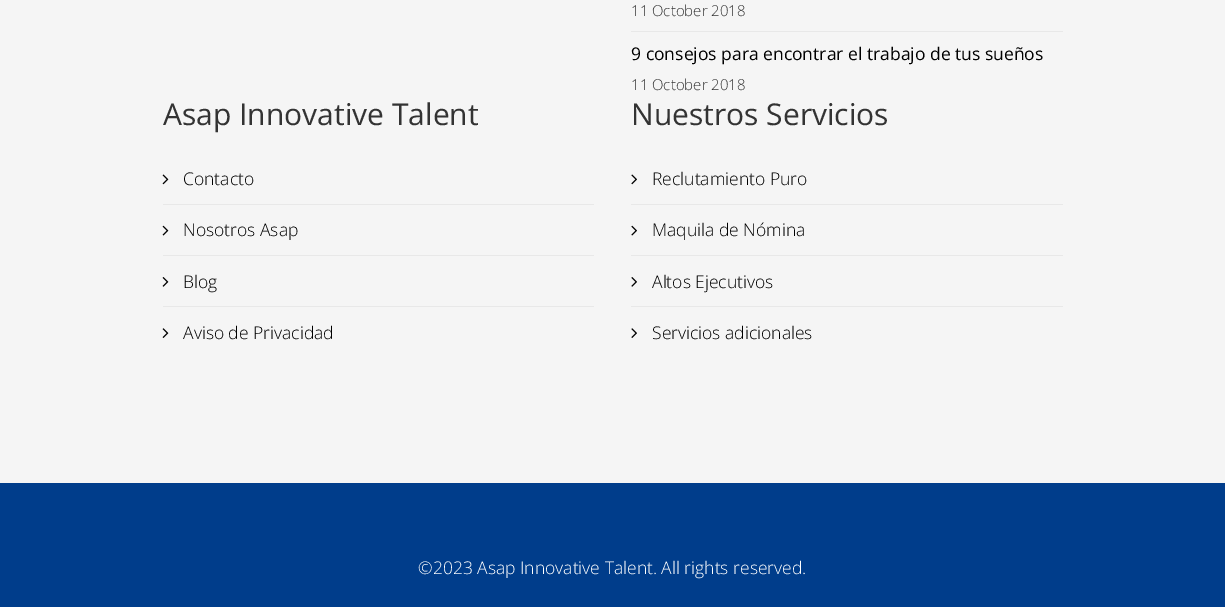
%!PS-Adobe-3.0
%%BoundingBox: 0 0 1225 607
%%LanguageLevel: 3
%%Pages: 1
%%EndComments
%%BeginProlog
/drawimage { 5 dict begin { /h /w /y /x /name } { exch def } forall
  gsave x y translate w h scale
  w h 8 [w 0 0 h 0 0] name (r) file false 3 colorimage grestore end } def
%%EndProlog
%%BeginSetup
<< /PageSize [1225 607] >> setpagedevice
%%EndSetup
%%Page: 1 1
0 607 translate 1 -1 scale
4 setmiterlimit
0.961 setgray
0 0 1225 607 rectfill
0.91 setgray
631 31 432 1 rectfill
163 204 431 1 rectfill
(images/1.raw) 162 174 7 11 drawimage
163 255 431 1 rectfill
(images/2.raw) 162 225 7 11 drawimage
163 306 431 1 rectfill
(images/3.raw) 162 277 7 10 drawimage
(images/4.raw) 162 328 7 10 drawimage
631 204 432 1 rectfill
(images/5.raw) 631 174 6 11 drawimage
631 255 432 1 rectfill
(images/6.raw) 631 225 6 11 drawimage
631 306 432 1 rectfill
(images/7.raw) 631 277 6 10 drawimage
(images/8.raw) 631 328 6 10 drawimage
0 0.239 0.545 setrgbcolor
0 483 1225 124 rectfill
/OpenSans-Light [15 0 0 -15 0 0] selectfont
0.2 setgray
631 16 moveto (11 October 2018) show
/OpenSans-Regular [17.5 0 0 -17.5 0 0] selectfont
0 setgray
631 60 moveto (9 consejos para encontrar el trabajo de tus sueños) show
/OpenSans-Light [15 0 0 -15 0 0] selectfont
0.2 setgray
631 90 moveto (11 October 2018) show
/OpenSans-Regular [30 0 0 -30 0 0] selectfont
163 125 moveto (Asap Innovative Talent) show
/OpenSans-Light [17.5 0 0 -17.5 0 0] selectfont
0 setgray
183 185 moveto (Contacto) show
183 236 moveto (Nosotros Asap) show
183 288 moveto (Blog) show
183 339 moveto (Aviso de Privacidad) show
/OpenSans-Regular [30 0 0 -30 0 0] selectfont
0.2 setgray
631 125 moveto (Nuestros Servicios) show
/OpenSans-Light [17.5 0 0 -17.5 0 0] selectfont
0 setgray
652 185 moveto (Reclutamiento Puro) show
652 236 moveto (Maquila de Nómina) show
652 288 moveto (Altos Ejecutivos) show
652 339 moveto (Servicios adicionales) show
1 setgray
418 574 moveto (©2023 Asap Innovative Talent. All rights reserved.) show
showpage
%%EOF
